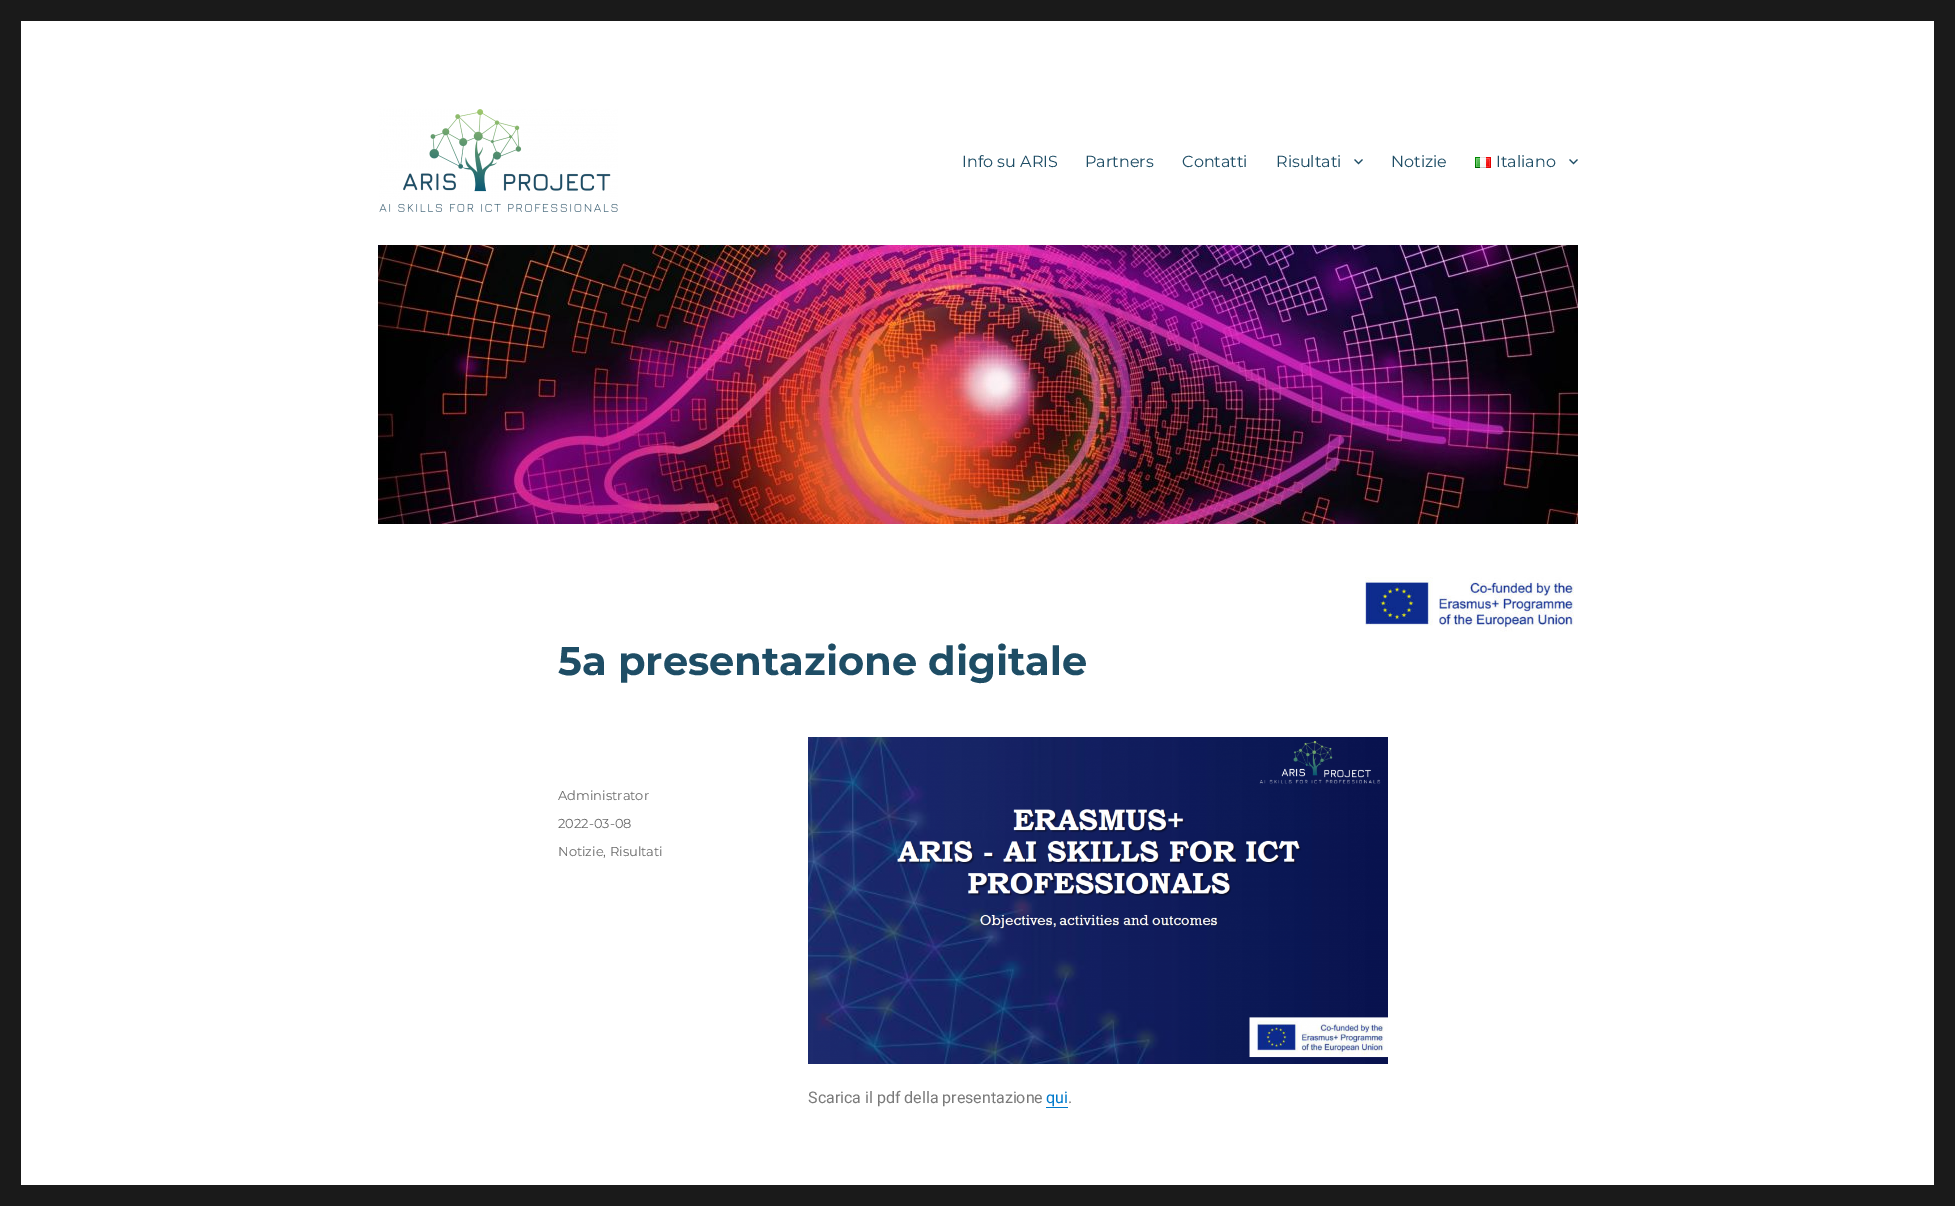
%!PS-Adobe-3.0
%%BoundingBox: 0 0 1955 1206
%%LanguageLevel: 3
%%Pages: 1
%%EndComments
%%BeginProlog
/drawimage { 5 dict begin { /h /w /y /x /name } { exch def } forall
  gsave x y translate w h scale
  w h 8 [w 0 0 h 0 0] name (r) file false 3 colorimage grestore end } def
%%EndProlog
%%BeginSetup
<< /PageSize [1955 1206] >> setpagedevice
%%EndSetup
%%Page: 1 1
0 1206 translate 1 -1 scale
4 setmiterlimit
0.102 setgray
0 0 1955 1206 rectfill
1 setgray
21 21 1913 1164 rectfill
(images/1.raw) 1365 577 209 55 drawimage
(images/2.raw) 379 109 239 103 drawimage
(images/3.raw) 1354 159 9 6 drawimage
(images/4.raw) 1475 157 16 11 drawimage
(images/3.raw) 1569 159 9 6 drawimage
(images/5.raw) 378 245 1200 279 drawimage
(images/6.raw) 808 737 580 327 drawimage
0 0.478 0.8 setrgbcolor
1046 1107 22 1 rectfill
/Montserrat-Thin [16 0 0 -16 0 0] selectfont
0.118 0.302 0.396 setrgbcolor
962 167 moveto (Info su ARIS) show
1085 167 moveto (Partners) show
1182 167 moveto (Contatti) show
1276 167 moveto (Risultati) show
1391 167 moveto (Notizie) show
1496 167 moveto (Italiano) show
/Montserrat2-Thin [40 0 0 -40 0 0] selectfont
558 675 moveto (5a presentazione digitale) show
/Montserrat-Thin [13 0 0 -13 0 0] selectfont
0.408 setgray
558 800 moveto (Administrator) show
558 828 moveto (2022-03-08) show
558 856 moveto (Notizie, Risultati) show
/Roboto-Regular [16 0 0 -16 0 0] selectfont
0.478 setgray
808 1103 moveto (Scarica il pdf della presentazione) show
0 0.478 0.8 setrgbcolor
1046 1103 moveto (qui) show
0.478 setgray
1068 1103 moveto (.) show
showpage
%%EOF
